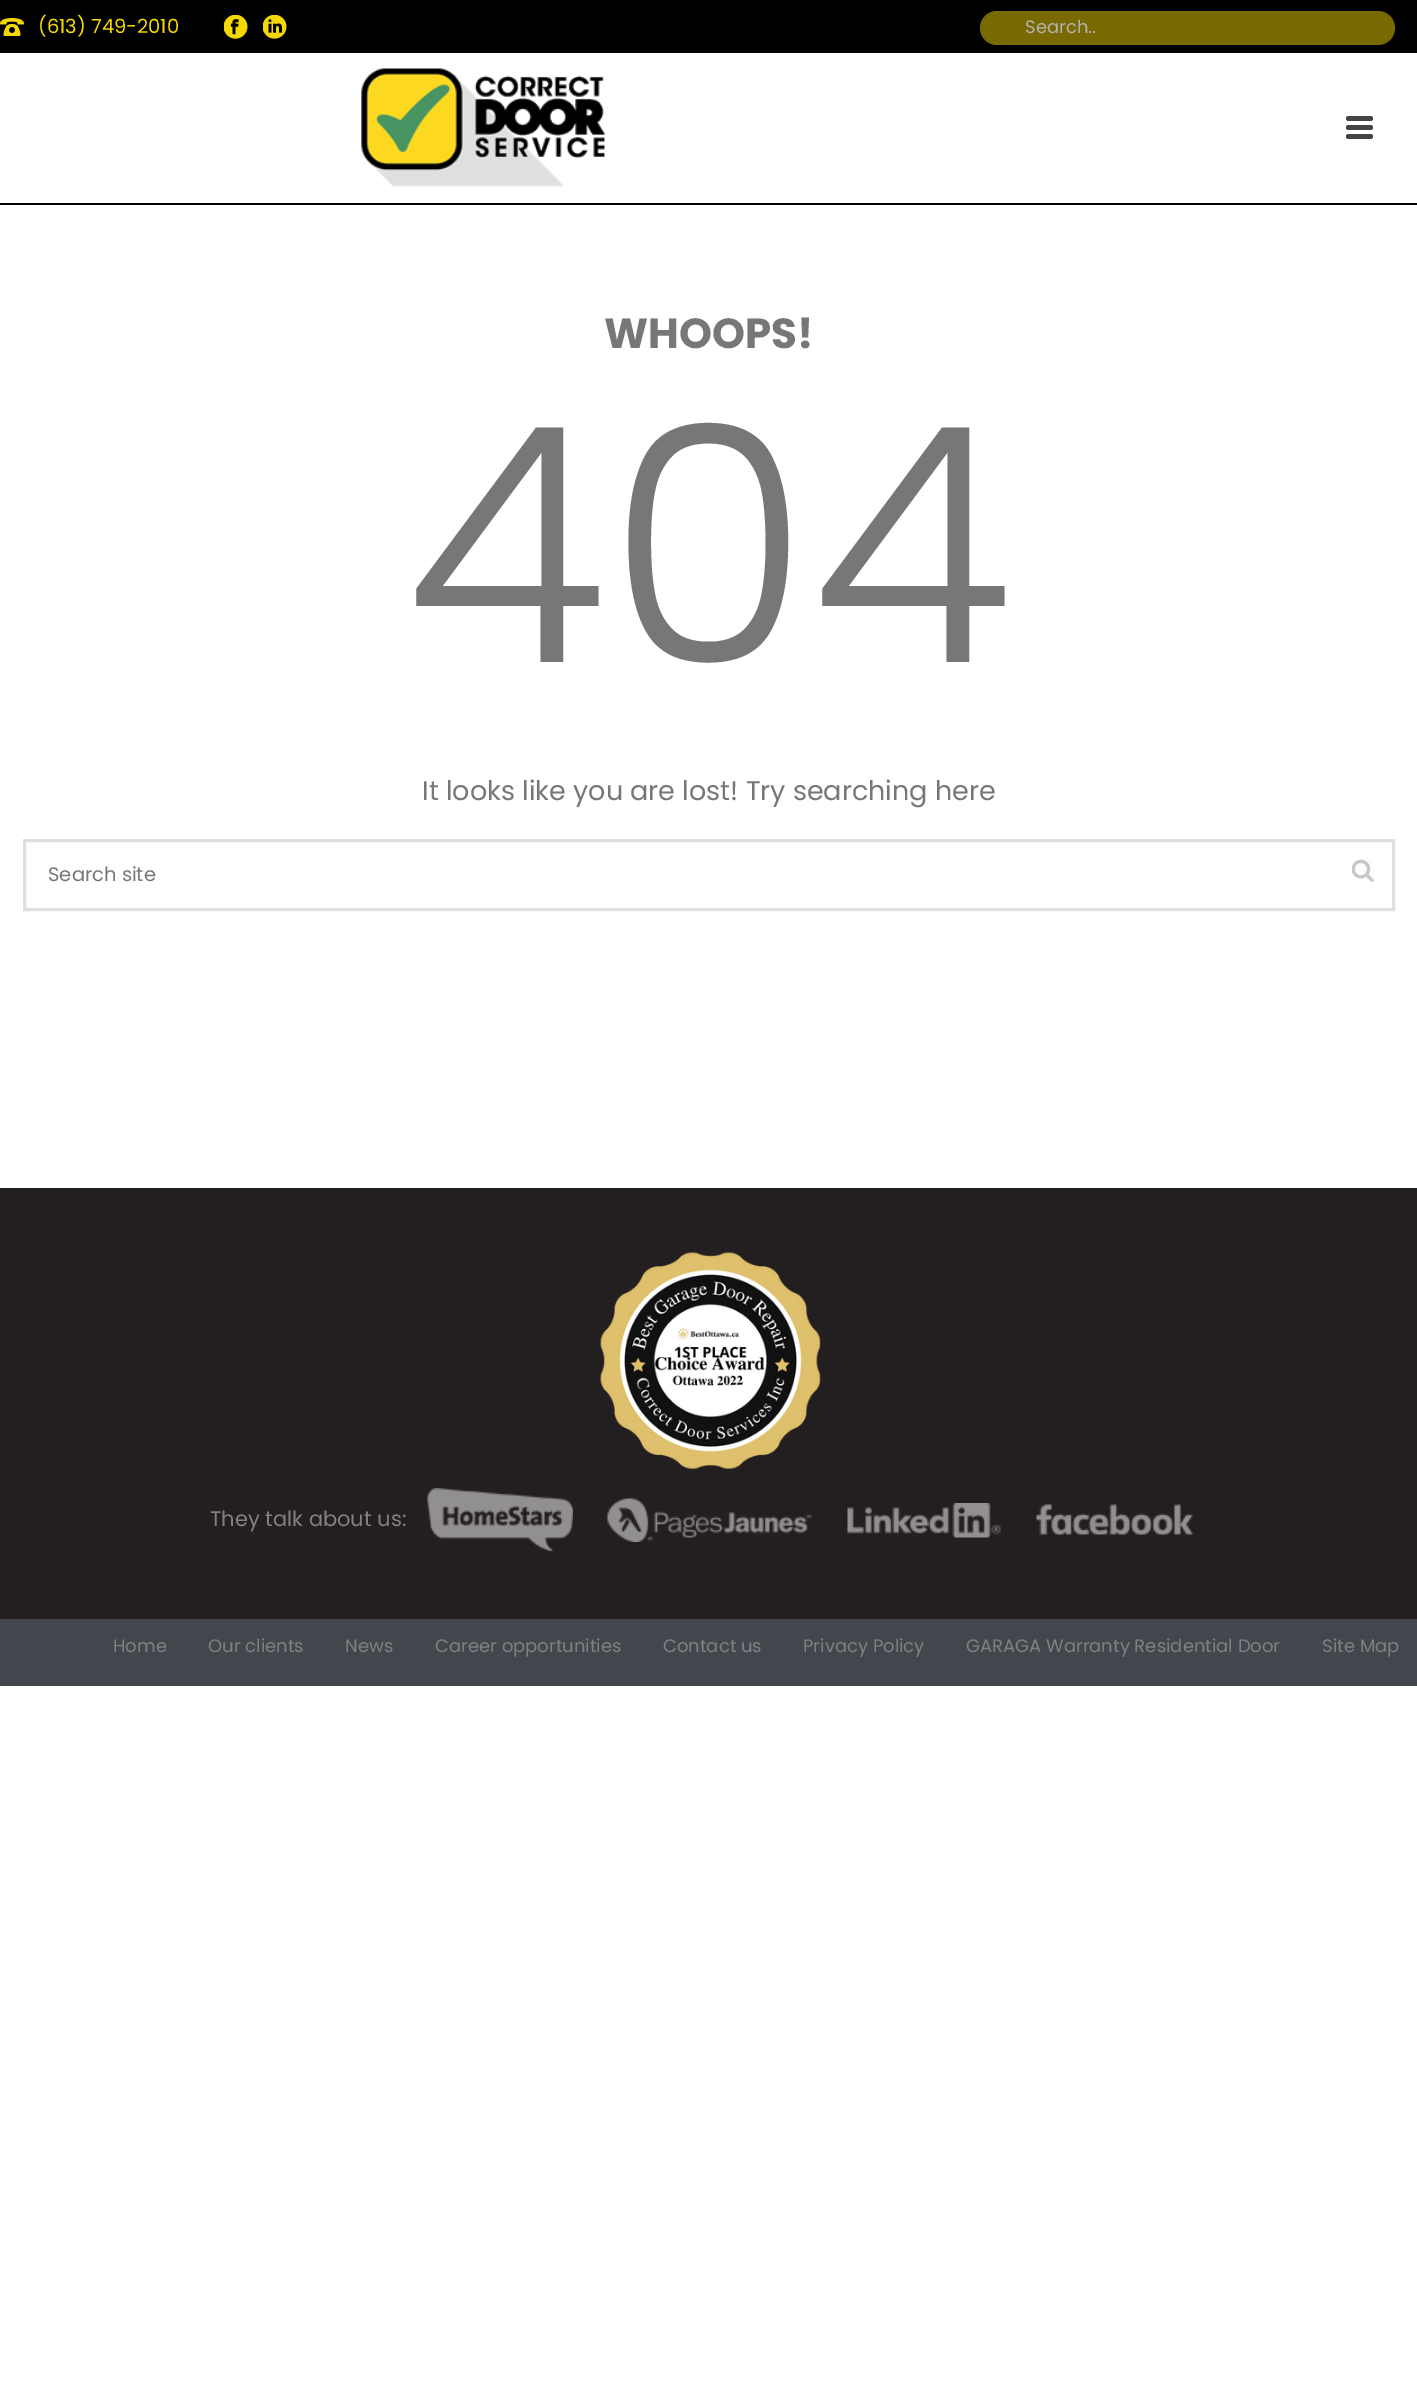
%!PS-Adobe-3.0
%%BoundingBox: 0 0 1417 2402
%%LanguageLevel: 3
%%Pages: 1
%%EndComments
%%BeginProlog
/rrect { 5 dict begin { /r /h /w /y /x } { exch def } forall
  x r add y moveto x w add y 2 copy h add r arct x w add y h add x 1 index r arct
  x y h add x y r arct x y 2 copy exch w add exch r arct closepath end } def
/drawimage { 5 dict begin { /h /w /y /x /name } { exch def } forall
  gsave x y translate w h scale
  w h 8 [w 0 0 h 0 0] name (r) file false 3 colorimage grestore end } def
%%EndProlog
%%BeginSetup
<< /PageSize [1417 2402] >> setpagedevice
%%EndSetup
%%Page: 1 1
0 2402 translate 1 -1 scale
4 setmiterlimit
1 setgray
0 0 1417 2402 rectfill
0 setgray
0 0 1417 53 rectfill
(images/1.raw) 0 18 24 18 drawimage
(images/2.raw) 224 15 24 24 drawimage
(images/3.raw) 263 15 24 24 drawimage
gsave
980 0 415 53 26.5 rrect clip newpath
0.471 0.416 0.004 setrgbcolor
980 11 415 34 17 rrect fill
grestore
0 203 1417 2 rectfill
(images/4.raw) 361 68 244 119 drawimage
0.267 setgray
1346 116 27 5 2.5 rrect fill
1346 125 27 5 2.5 rrect fill
1346 134 27 5 2.5 rrect fill
0.875 setgray
3 setlinewidth
24.5 840.5 1369 69 rectstroke
(images/5.raw) 1352 859 22 23 drawimage
0.137 0.122 0.125 setrgbcolor
0 1188 1417 431 rectfill
(images/6.raw) 600 1252 221 218 drawimage
(images/7.raw) 427 1488 146 63 drawimage
(images/8.raw) 607 1498 205 44 drawimage
(images/9.raw) 847 1503 154 35 drawimage
(images/10.raw) 1036 1504 157 31 drawimage
0.263 0.278 0.302 setrgbcolor
0 1619 1417 67 rectfill
/Poppins-Regular [19.5 0 0 -19.5 0 0] selectfont
0.957 0.847 0.008 setrgbcolor
38 33 moveto (\(613\) 749-2010) show
/Poppins-Regular [18 0 0 -18 0 0] selectfont
0.702 setgray
1025 33 moveto (Search..) show
/Poppins-Bold [42 0 0 -42 0 0] selectfont
0.467 setgray
604 348 moveto (WHOOPS!) show
/Poppins-Light [330 0 0 -330 0 0] selectfont
405 662 moveto (404) show
/Poppins-Regular [27 0 0 -27 0 0] selectfont
422 800 moveto (It looks like you are lost! Try searching here) show
/Poppins-Regular [19.5 0 0 -19.5 0 0] selectfont
48 881 moveto (Search site) show
/Poppins-Regular [21 0 0 -21 0 0] selectfont
0.502 setgray
210 1526 moveto (They talk about us:) show
/Poppins-Regular [18 0 0 -18 0 0] selectfont
113 1652 moveto (Home) show
208 1652 moveto (Our clients) show
345 1652 moveto (News) show
435 1652 moveto (Career opportunities) show
663 1652 moveto (Contact us) show
803 1652 moveto (Privacy Policy) show
966 1652 moveto (GARAGA Warranty Residential Door) show
1322 1652 moveto (Site Map) show
showpage
%%EOF
